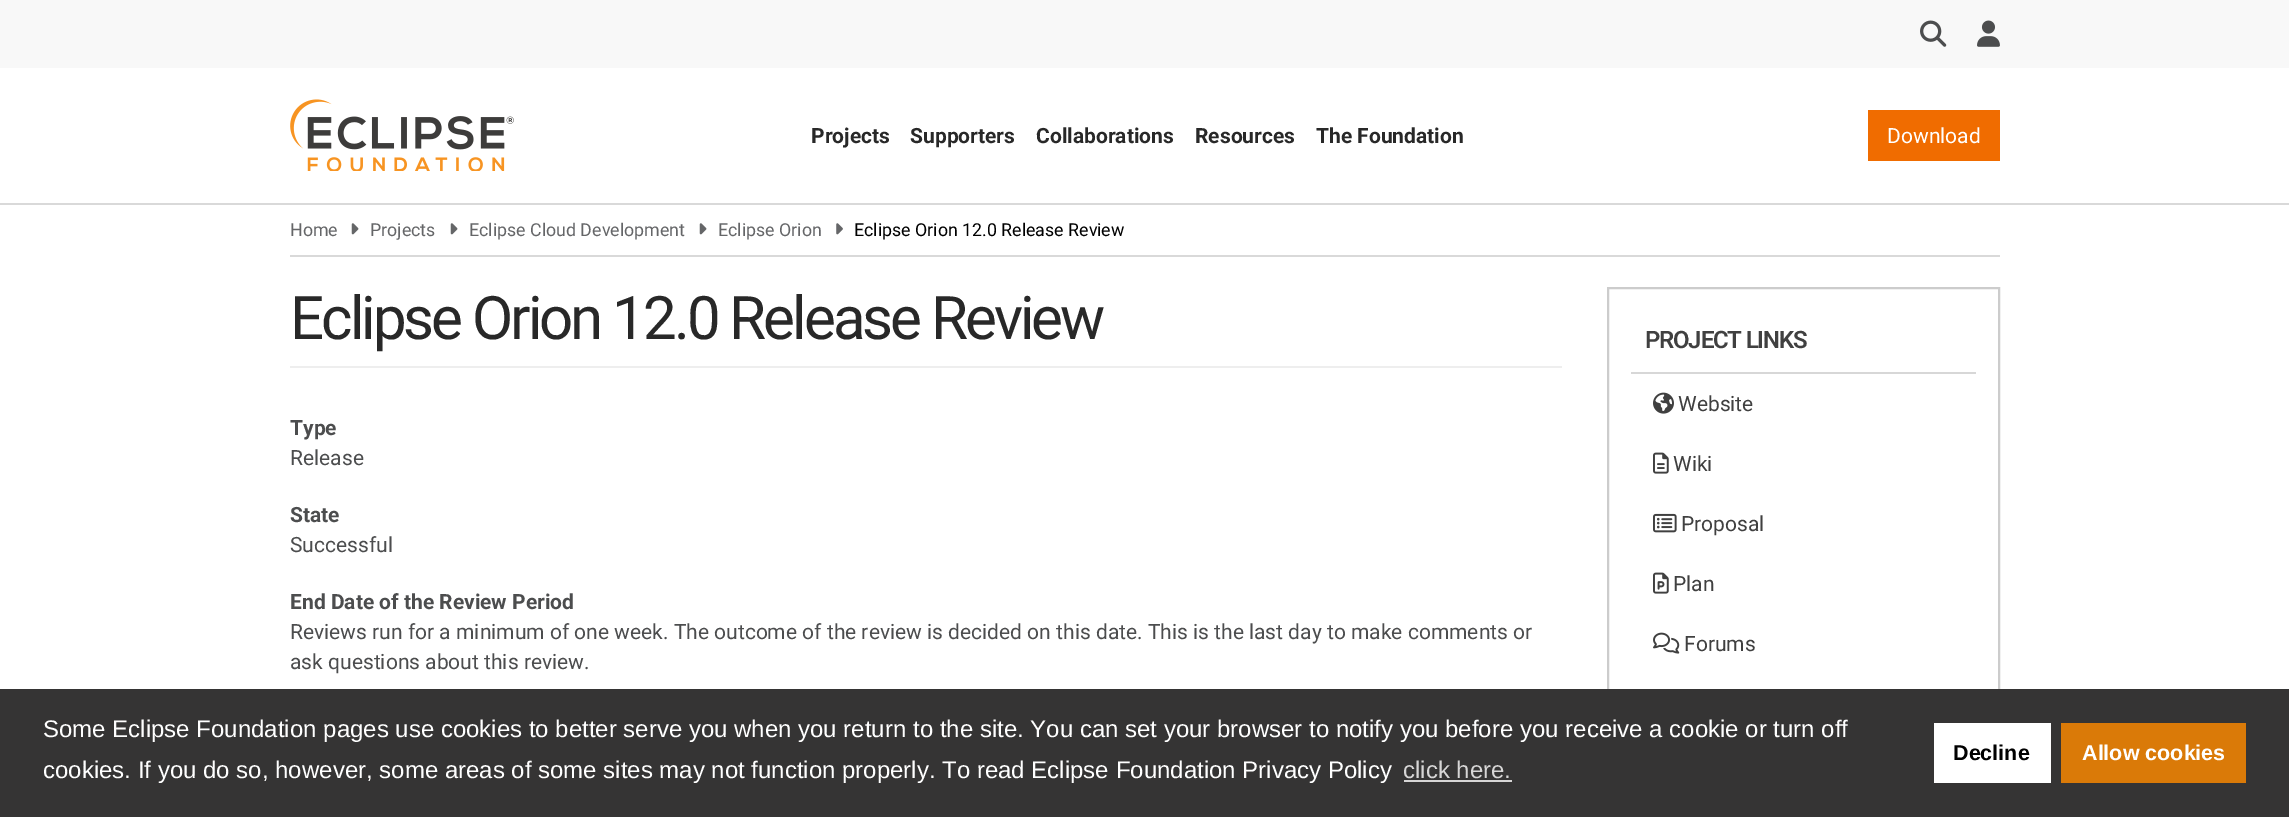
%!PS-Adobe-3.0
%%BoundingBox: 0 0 2289 817
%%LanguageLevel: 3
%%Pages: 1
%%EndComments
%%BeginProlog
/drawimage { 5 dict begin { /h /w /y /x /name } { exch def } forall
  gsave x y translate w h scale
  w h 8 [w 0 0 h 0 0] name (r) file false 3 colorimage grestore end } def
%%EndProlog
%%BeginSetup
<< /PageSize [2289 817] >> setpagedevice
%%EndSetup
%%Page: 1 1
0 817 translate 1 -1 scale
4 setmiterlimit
1 setgray
0 0 2289 817 rectfill
0.973 setgray
0 0 2289 68 rectfill
(images/1.raw) 1920 20 27 27 drawimage
(images/2.raw) 1977 20 23 27 drawimage
0.851 setgray
0 203 2289 2 rectfill
(images/3.raw) 290 99 224 72 drawimage
0.941 0.424 0 setrgbcolor
1868 110 132 51 rectfill
0.851 setgray
290 255 1710 2 rectfill
(images/4.raw) 351 223 8 12 drawimage
(images/4.raw) 450 223 8 12 drawimage
(images/4.raw) 699 223 8 12 drawimage
(images/5.raw) 836 223 7 12 drawimage
0.933 setgray
290 366 1272 2 rectfill
0.8 setgray
2 setlinewidth
1608 288 391 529 rectstroke
0.843 setgray
1631 372 345 2 rectfill
(images/6.raw) 1653 392 21 22 drawimage
(images/7.raw) 1653 452 16 22 drawimage
(images/8.raw) 1653 513 24 20 drawimage
(images/9.raw) 1653 572 16 22 drawimage
(images/10.raw) 1653 632 27 22 drawimage
0.208 0.204 0.204 setrgbcolor
0 689 2289 128 rectfill
0.843 0.839 0.839 setrgbcolor
1404 780 108 2 rectfill
1 setgray
1934 723 117 60 rectfill
0.855 0.478 0.031 setrgbcolor
2061 723 185 60 rectfill
/Roboto-Bold [21 0 0 -21 0 0] selectfont
0.157 setgray
811 143 moveto (Projects) show
910 143 moveto (Supporters) show
1036 143 moveto (Collaborations) show
1195 143 moveto (Resources) show
1316 143 moveto (The Foundation) show
/Roboto-Regular [21 0 0 -21 0 0] selectfont
1 setgray
1887 143 moveto (Download) show
/Roboto-Regular [17.8 0 0 -17.8 0 0] selectfont
0.396 0.4 0.408 setrgbcolor
290 236 moveto (Home) show
370 236 moveto (Projects) show
469 236 moveto (Eclipse Cloud Development) show
718 236 moveto (Eclipse Orion) show
0 setgray
854 236 moveto (Eclipse Orion 12.0 Release Review) show
/Roboto-Regular [60 0 0 -60 0 0] selectfont
0.157 setgray
290 339 moveto -3 0 (Eclipse Orion 12.0 Release Review) ashow
/Roboto-Bold [21 0 0 -21 0 0] selectfont
0.298 0.302 0.306 setrgbcolor
290 435 moveto (Type) show
/Roboto-Regular [21 0 0 -21 0 0] selectfont
290 465 moveto (Release) show
/Roboto-Bold [21 0 0 -21 0 0] selectfont
290 522 moveto (State) show
/Roboto-Regular [21 0 0 -21 0 0] selectfont
290 552 moveto (Successful) show
/Roboto-Bold [21 0 0 -21 0 0] selectfont
290 609 moveto (End Date of the Review Period) show
/Roboto-Regular [21 0 0 -21 0 0] selectfont
290 639 moveto (Reviews run for a minimum of one week. The outcome of the review is decided on this date. This is the last day to make comments or) show
290 669 moveto (ask questions about this review.) show
/Roboto-SemiBold [24 0 0 -24 0 0] selectfont
0.251 setgray
1645 348 moveto -1.25 0 (PROJECT LINKS) ashow
/Roboto-Regular [21 0 0 -21 0 0] selectfont
1678 411 moveto (Website) show
1673 471 moveto (Wiki) show
1681 531 moveto (Proposal) show
1673 591 moveto (Plan) show
1684 651 moveto (Forums) show
/LiberationSans-Regular [24 0 0 -24 0 0] selectfont
1 setgray
43 737 moveto (Some Eclipse Foundation pages use cookies to better serve you when you return to the site. You can set your browser to notify you before you receive a cookie or turn off) show
43 778 moveto (cookies. If you do so, however, some areas of some sites may not function properly. To read Eclipse Foundation Privacy Policy) show
0.843 0.839 0.839 setrgbcolor
1403 778 moveto (click here.) show
/LiberationSans-Bold [21.5 0 0 -21.5 0 0] selectfont
0 setgray
1953 760 moveto (Decline) show
1 setgray
2082 760 moveto (Allow cookies) show
showpage
%%EOF
